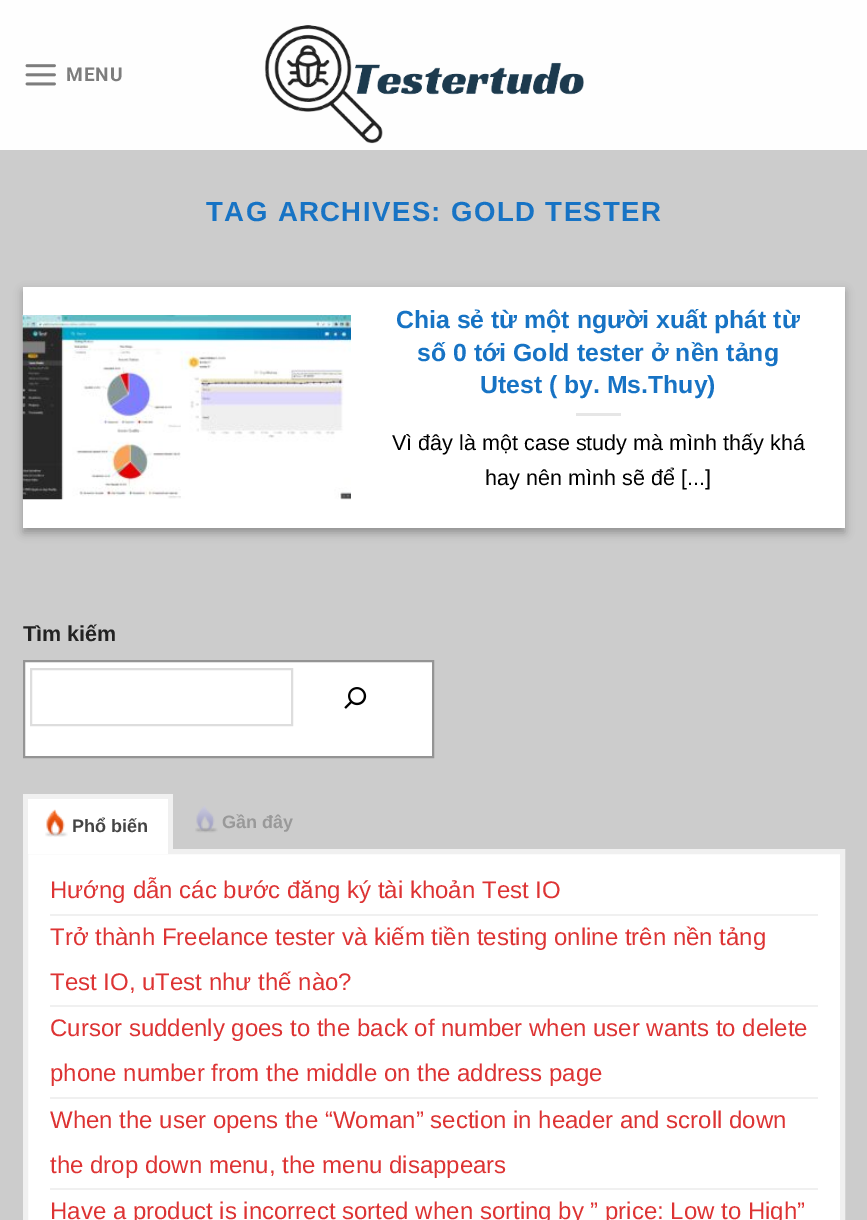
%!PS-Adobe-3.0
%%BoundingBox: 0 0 867 1220
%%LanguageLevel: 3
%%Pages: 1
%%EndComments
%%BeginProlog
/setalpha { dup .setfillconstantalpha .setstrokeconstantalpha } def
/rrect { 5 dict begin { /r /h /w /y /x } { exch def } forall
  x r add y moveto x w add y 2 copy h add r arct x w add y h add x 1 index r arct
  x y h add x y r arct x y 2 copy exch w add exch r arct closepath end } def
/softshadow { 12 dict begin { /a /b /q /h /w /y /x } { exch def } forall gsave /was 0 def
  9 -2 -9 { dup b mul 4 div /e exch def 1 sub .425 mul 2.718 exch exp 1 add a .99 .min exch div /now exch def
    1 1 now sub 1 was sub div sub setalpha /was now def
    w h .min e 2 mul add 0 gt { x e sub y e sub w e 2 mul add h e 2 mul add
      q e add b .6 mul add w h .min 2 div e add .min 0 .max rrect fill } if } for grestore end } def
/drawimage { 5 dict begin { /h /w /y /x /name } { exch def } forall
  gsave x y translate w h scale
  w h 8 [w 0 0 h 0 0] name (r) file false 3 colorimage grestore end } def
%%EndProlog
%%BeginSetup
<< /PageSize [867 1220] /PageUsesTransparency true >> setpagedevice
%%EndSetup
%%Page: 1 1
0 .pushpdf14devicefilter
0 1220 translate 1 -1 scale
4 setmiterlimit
0.8 setgray
0 0 867 1220 rectfill
0.996 setgray
0 0 867 150 rectfill
(images/1.raw) 25 64 31 22 drawimage
(images/2.raw) 264 25 320 119 drawimage
0 setgray
23 291 822 242 0 4.5 0.23 softshadow
29 297 810 230 0 4.5 0.16 softshadow
1 setgray
23 287 822 241 rectfill
(images/3.raw) 22 315 329 185 drawimage
0.902 setgray
576 413 45 3 rectfill
1 setgray
newpath 24 661 moveto 433 661 lineto 433 757 lineto 24 757 lineto closepath gsave fill grestore
0.58 setgray
2 setlinewidth
stroke
0.867 setgray
31 669 261 56 rectstroke
(images/4.raw) 344 687 23 22 drawimage
1 setgray
newpath 25.5 851.5 moveto 842.5 851.5 lineto 842.5 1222.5 lineto 25.5 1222.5 lineto closepath gsave fill grestore
0.941 setgray
5 setlinewidth
stroke
1 setgray
28 799 140 55 rectfill
(images/5.raw) 45 809 23 28 drawimage
0.941 setgray
23 794 150 5 rectfill
168 794 5 60 rectfill
23 794 5 60 rectfill
(images/6.raw) 195 805 23 28 drawimage
50 914 768 2 rectfill
50 1005 768 2 rectfill
50 1097 768 2 rectfill
50 1188 768 2 rectfill
/Roboto-Bold [19 0 0 -19 0 0] selectfont
0.49 setgray
66 81 moveto 1 0 (MENU) ashow
/LiberationSans-Bold [27.6 0 0 -27.6 0 0] selectfont
0.09 0.451 0.769 setrgbcolor
206 221 moveto 1.4 0 (TAG ARCHIVES: GOLD TESTER) ashow
/LiberationSans-Bold [24.8 0 0 -24.8 0 0] selectfont
396 328 moveto (Chia sẻ từ một người xuất phát từ) show
417 361 moveto (số 0 tới Gold tester ở nền tảng) show
480 393 moveto (Utest \( by. Ms.Thuy\)) show
/LiberationSans-Regular [21.6 0 0 -21.6 0 0] selectfont
0 setgray
392 450 moveto (Vì đây là một case study mà mình thấy khá) show
485 485 moveto (hay nên mình sẽ để [...]) show
/LiberationSans-Bold [21.6 0 0 -21.6 0 0] selectfont
0.133 setgray
23 641 moveto (Tìm kiếm) show
/LiberationSans-Bold [18 0 0 -18 0 0] selectfont
0.267 setgray
72 832 moveto (Phổ biến) show
0.6 setgray
222 828 moveto (Gần đây) show
/LiberationSans-Regular [24 0 0 -24 0 0] selectfont
0.867 0.2 0.2 setrgbcolor
50 898 moveto (Hướng dẫn các bước đăng ký tài khoản Test IO) show
50 945 moveto (Trở thành Freelance tester và kiếm tiền testing online trên nền tảng) show
50 990 moveto (Test IO, uTest như thế nào?) show
50 1036 moveto (Cursor suddenly goes to the back of number when user wants to delete) show
50 1081 moveto (phone number from the middle on the address page) show
50 1128 moveto (When the user opens the “Woman” section in header and scroll down) show
50 1173 moveto (the drop down menu, the menu disappears) show
50 1219 moveto (Have a product is incorrect sorted when sorting by ” price: Low to High”) show
.poppdf14devicefilter showpage
%%EOF
